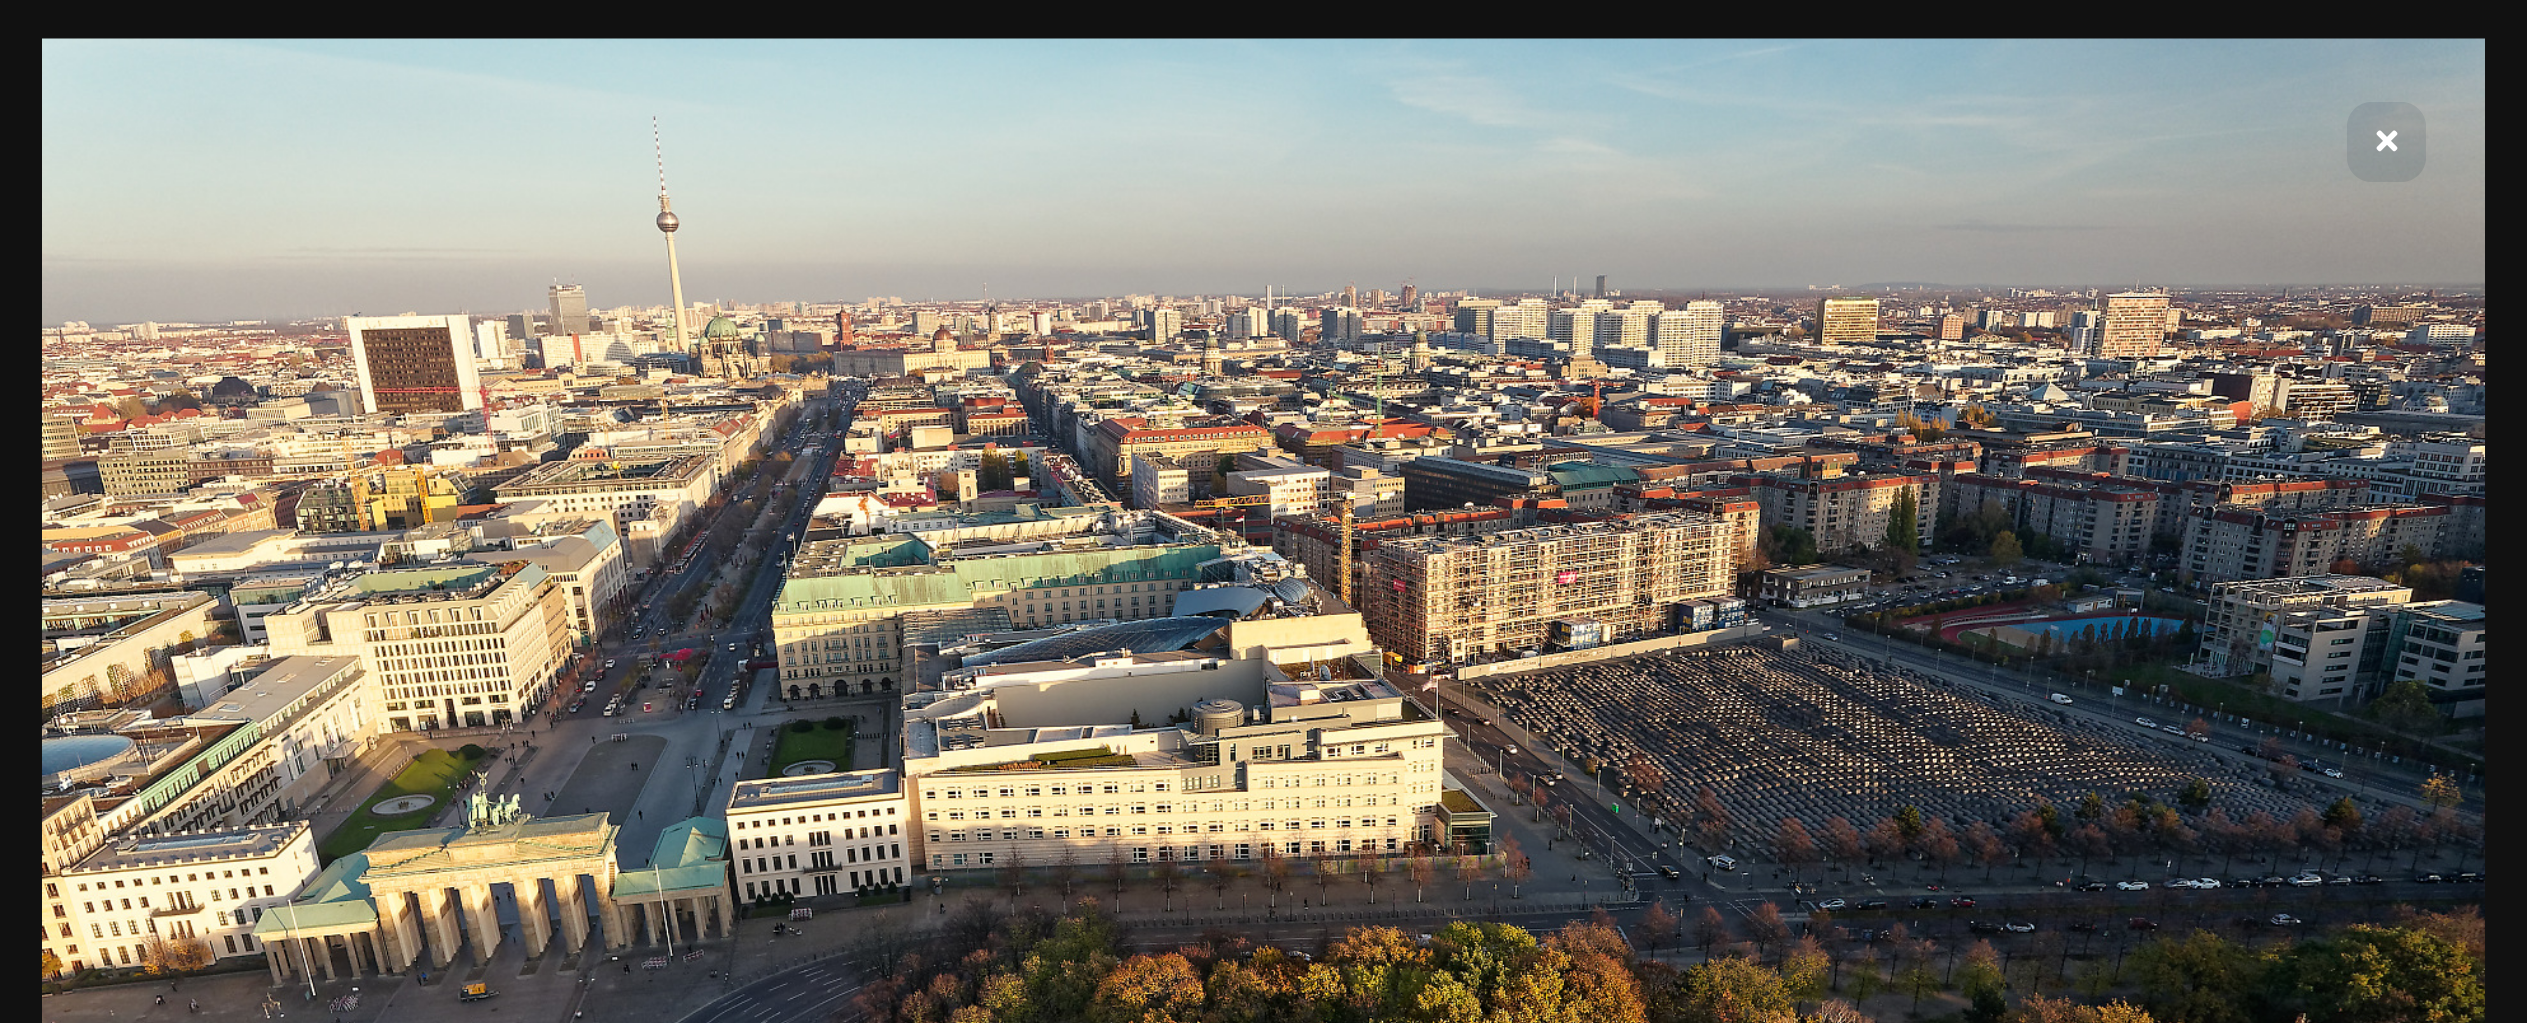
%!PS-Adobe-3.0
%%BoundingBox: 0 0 2527 1023
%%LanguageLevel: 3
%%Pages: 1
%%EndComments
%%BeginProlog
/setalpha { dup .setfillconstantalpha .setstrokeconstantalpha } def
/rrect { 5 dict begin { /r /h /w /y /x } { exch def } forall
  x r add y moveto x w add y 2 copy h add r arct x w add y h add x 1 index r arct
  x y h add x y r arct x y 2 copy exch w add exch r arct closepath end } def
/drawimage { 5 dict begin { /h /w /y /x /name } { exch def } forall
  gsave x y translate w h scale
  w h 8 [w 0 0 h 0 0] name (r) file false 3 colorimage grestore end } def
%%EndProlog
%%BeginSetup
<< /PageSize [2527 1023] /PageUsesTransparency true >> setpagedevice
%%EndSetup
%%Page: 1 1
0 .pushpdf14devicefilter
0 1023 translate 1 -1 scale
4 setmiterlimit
0.067 setgray
0 0 2527 1023 rectfill
(images/1.raw) 42 38 2443 985 drawimage
0.1 setalpha
0 0.102 0.2 setrgbcolor
2347 102 79 80 25 rrect fill
1 setalpha
(images/2.raw) 2376 130 22 22 drawimage
.poppdf14devicefilter showpage
%%EOF
